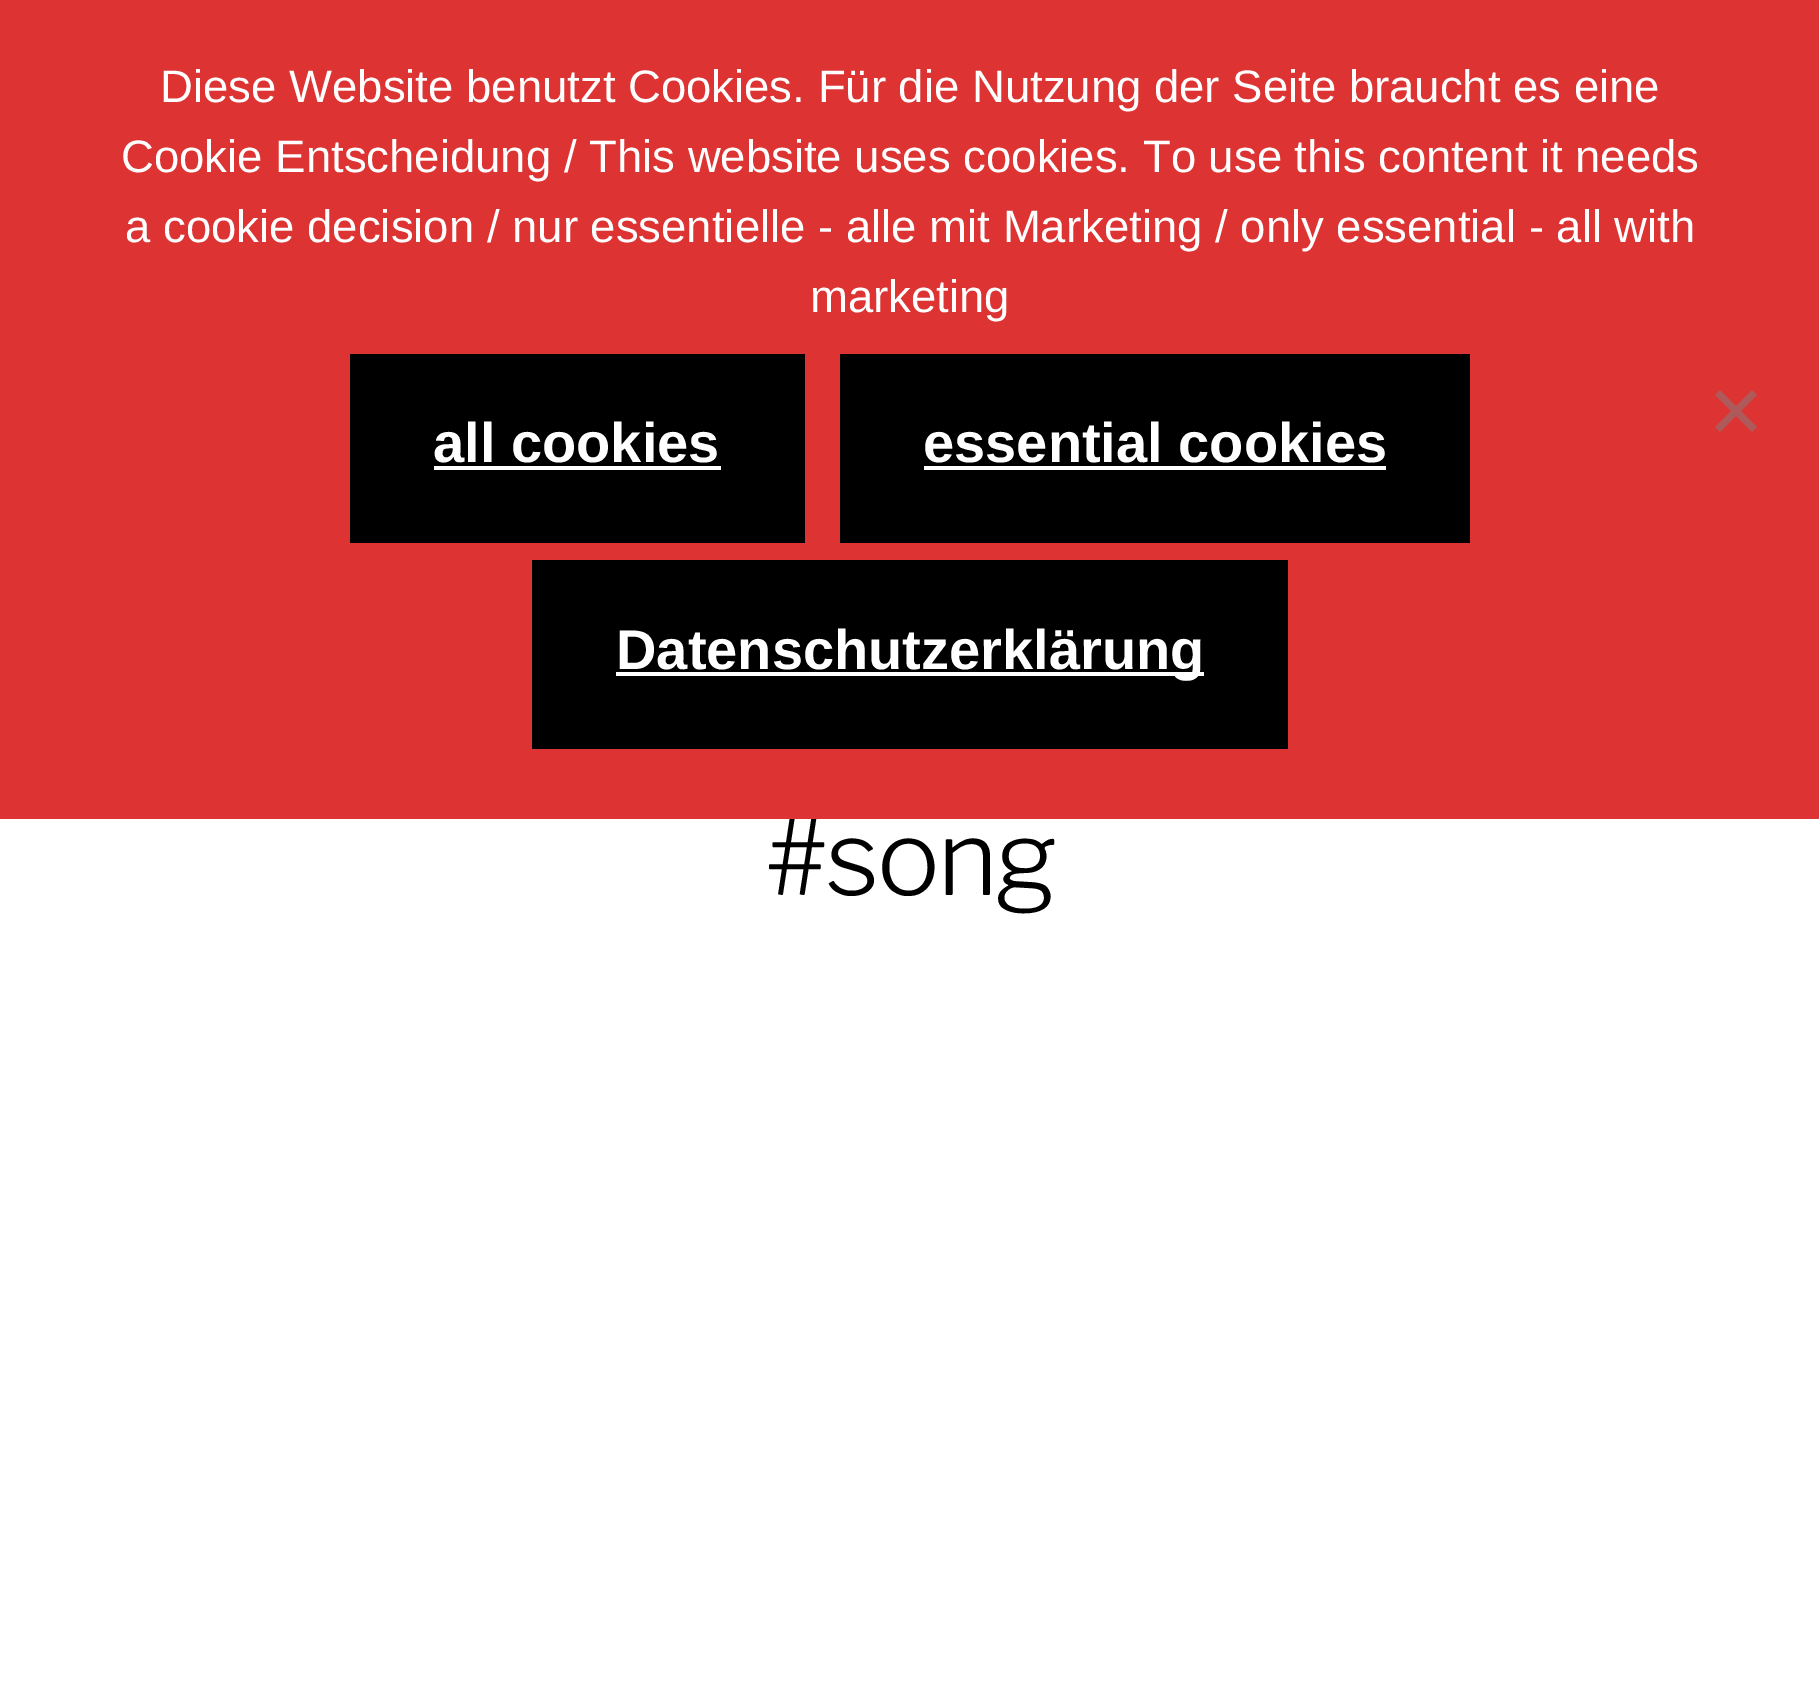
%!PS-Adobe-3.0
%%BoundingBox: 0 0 1819 1700
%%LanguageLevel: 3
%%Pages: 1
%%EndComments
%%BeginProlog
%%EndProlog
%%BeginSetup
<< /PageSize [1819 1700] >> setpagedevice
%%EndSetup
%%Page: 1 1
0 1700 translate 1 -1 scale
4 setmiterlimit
1 setgray
0 0 1819 1700 rectfill
/LibreFranklin-Thin [105 0 0 -105 0 0] selectfont
0 setgray
765 895 moveto -2.5 0 (#song) ashow
0.867 0.2 0.2 setrgbcolor
0 0 1819 819 rectfill
0.686 0.353 0.353 setrgbcolor
newpath 1752 390 moveto 1757 395 lineto 1720 432 lineto 1715 427 lineto closepath fill
newpath 1715 395 moveto 1720 390 lineto 1757 427 lineto 1752 432 lineto closepath fill
0 setgray
532 560 756 189 rectfill
1 setgray
616 672 588 4 rectfill
/LiberationSans-Bold [56 0 0 -56 0 0] selectfont
616 669 moveto (Datenschutzerklärung) show
0 setgray
840 354 630 189 rectfill
1 setgray
923 462 moveto (essential cookies) show
924 466 462 4 rectfill
0 setgray
350 354 455 189 rectfill
1 setgray
433 462 moveto (all cookies) show
434 466 287 4 rectfill
/LiberationSans-Regular [45.5 0 0 -45.5 0 0] selectfont
810 312 moveto (marketing) show
125 242 moveto (a cookie decision / nur essentielle - alle mit Marketing / only essential - all with) show
121 172 moveto (Cookie Entscheidung / This website uses cookies. To use this content it needs) show
160 102 moveto (Diese Website benutzt Cookies. Für die Nutzung der Seite braucht es eine) show
showpage
%%EOF
